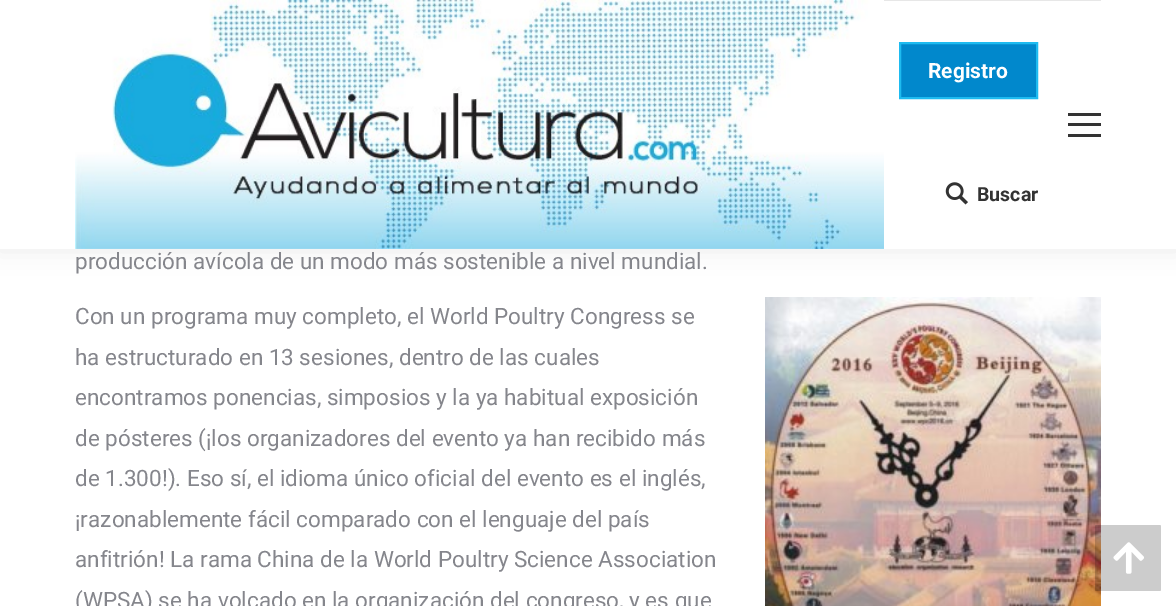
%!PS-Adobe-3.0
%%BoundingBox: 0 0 1176 606
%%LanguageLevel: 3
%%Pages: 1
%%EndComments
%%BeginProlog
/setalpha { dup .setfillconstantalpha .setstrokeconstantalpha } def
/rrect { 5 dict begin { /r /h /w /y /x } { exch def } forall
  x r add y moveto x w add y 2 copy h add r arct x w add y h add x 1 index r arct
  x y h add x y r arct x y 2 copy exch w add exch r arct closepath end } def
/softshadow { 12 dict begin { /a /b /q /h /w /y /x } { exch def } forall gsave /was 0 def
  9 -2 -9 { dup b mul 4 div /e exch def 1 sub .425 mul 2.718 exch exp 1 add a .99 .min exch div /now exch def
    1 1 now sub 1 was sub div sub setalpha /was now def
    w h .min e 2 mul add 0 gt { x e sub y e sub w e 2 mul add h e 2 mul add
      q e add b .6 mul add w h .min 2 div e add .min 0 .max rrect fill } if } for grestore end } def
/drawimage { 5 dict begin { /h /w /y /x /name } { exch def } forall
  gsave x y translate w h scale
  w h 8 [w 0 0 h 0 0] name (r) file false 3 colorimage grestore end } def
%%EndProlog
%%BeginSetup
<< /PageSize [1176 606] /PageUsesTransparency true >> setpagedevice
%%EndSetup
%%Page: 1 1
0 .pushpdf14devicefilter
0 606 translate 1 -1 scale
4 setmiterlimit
1 setgray
0 0 1176 606 rectfill
0 setgray
-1 -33 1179 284 0 11 0.07 softshadow
1 setgray
0 0 1176 249 rectfill
0.906 setgray
884 0 217 1 rectfill
(images/1.raw) 75 0 809 249 drawimage
0.004 0.533 0.8 setrgbcolor
newpath 900 43 moveto 1037 43 lineto 1037 98 lineto 900 98 lineto closepath gsave fill grestore
0.118 0.733 0.941 setrgbcolor
2 setlinewidth
stroke
(images/2.raw) 945 182 23 23 drawimage
0.2 setgray
1068 123 33 3 rectfill
1068 113 33 3 rectfill
1068 134 33 3 rectfill
(images/3.raw) 765 297 336 309 drawimage
0.2 setalpha
0 setgray
1095 525 66 66 1.5 rrect fill
1 setalpha
(images/4.raw) 1113 542 31 32 drawimage
/Roboto-Bold [21 0 0 -21 0 0] selectfont
1 setgray
928 78 moveto (Registro) show
/Roboto-Bold [19.5 0 0 -19.5 0 0] selectfont
0.2 setgray
977 201 moveto (Buscar) show
/Roboto-Regular [22.5 0 0 -22.5 0 0] selectfont
0.522 0.525 0.549 setrgbcolor
75 269 moveto (producción avícola de un modo más sostenible a nivel mundial.) show
75 324 moveto (Con un programa muy completo, el World Poultry Congress se) show
75 365 moveto (ha estructurado en 13 sesiones, dentro de las cuales) show
75 405 moveto (encontramos ponencias, simposios y la ya habitual exposición) show
75 446 moveto (de pósteres \(¡los organizadores del evento ya han recibido más) show
75 486 moveto (de 1.300!\). Eso sí, el idioma único oficial del evento es el inglés,) show
75 527 moveto (¡razonablemente fácil comparado con el lenguaje del país) show
75 567 moveto (anfitrión! La rama China de la World Poultry Science Association) show
75 608 moveto (\(WPSA\) se ha volcado en la organización del congreso, y es que) show
.poppdf14devicefilter showpage
%%EOF
